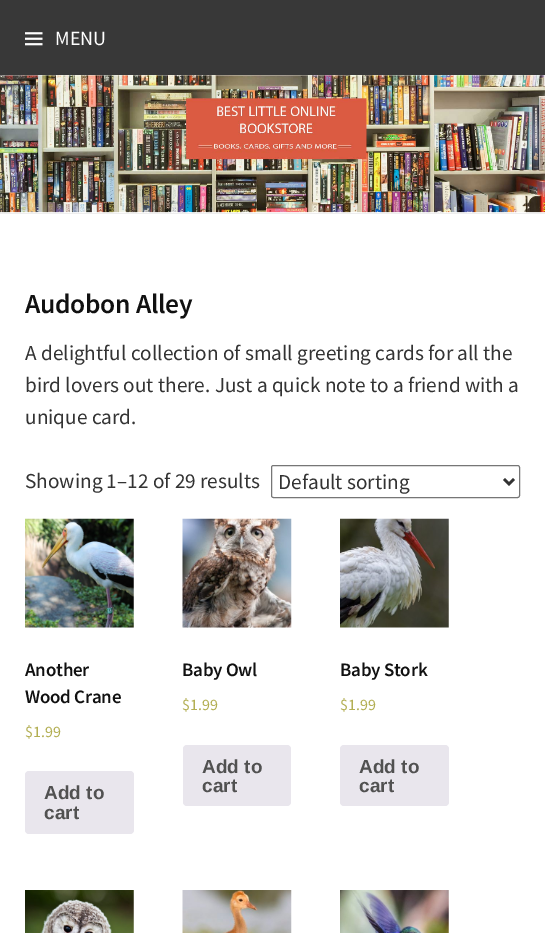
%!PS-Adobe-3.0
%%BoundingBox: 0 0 545 933
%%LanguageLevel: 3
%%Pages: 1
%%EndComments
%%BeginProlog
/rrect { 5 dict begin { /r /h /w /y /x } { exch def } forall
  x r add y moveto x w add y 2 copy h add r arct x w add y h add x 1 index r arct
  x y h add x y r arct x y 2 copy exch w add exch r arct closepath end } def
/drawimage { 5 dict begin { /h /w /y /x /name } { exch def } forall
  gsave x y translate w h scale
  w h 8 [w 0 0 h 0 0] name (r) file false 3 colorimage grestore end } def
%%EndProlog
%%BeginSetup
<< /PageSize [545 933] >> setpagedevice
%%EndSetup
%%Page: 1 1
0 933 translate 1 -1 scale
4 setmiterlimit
1 setgray
0 0 545 933 rectfill
0.933 setgray
0 213 545 1 rectfill
0.22 setgray
0 0 545 75 rectfill
(images/1.raw) 25 32 18 14 drawimage
(images/2.raw) 0 75 545 138 drawimage
0.463 setgray
271.5 465.5 248 32 2 rrect stroke
0.2 setgray
2.5 setlinewidth
newpath 504 479 moveto 509 484 lineto 514 479 lineto stroke
(images/3.raw) 25 518 109 110 drawimage
0.914 0.902 0.929 setrgbcolor
25 771 109 63 4 rrect fill
(images/4.raw) 182 518 110 110 drawimage
183 745 108 61 4 rrect fill
(images/5.raw) 340 518 109 110 drawimage
340 745 109 61 4 rrect fill
(images/6.raw) 25 890 109 43 drawimage
(images/7.raw) 182 890 110 43 drawimage
(images/8.raw) 340 890 109 43 drawimage
/SourceSansPro-Regular [20 0 0 -20 0 0] selectfont
1 setgray
55 45 moveto (MENU) show
/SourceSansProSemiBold-SemiBold [27.5 0 0 -27.5 0 0] selectfont
0.067 setgray
25 313 moveto -0.25 0 (Audobon Alley) ashow
/SourceSansPro-Regular [21.25 0 0 -21.25 0 0] selectfont
0.2 setgray
25 360 moveto (A delightful collection of small greeting cards for all the) show
25 392 moveto (bird lovers out there. Just a quick note to a friend with a) show
25 424 moveto (unique card.) show
25 488 moveto (Showing 1–12 of 29 results) show
278 489 moveto (Default sorting) show
/SourceSansProSemiBold-SemiBold [19 0 0 -19 0 0] selectfont
0.067 setgray
25 676 moveto -0.25 0 (Another) ashow
25 703 moveto -0.25 0 (Wood Crane) ashow
/SourceSansPro-Regular [16 0 0 -16 0 0] selectfont
0.702 0.686 0.329 setrgbcolor
25 737 moveto ($1.99) show
/LiberationSans-Bold [19 0 0 -19 0 0] selectfont
0.318 setgray
44 799 moveto (Add to) show
44 819 moveto (cart) show
/SourceSansProSemiBold-SemiBold [19 0 0 -19 0 0] selectfont
0.067 setgray
182 676 moveto -0.25 0 (Baby Owl) ashow
/SourceSansPro-Regular [16 0 0 -16 0 0] selectfont
0.702 0.686 0.329 setrgbcolor
182 710 moveto ($1.99) show
/LiberationSans-Bold [19 0 0 -19 0 0] selectfont
0.318 setgray
202 773 moveto (Add to) show
202 792 moveto (cart) show
/SourceSansProSemiBold-SemiBold [19 0 0 -19 0 0] selectfont
0.067 setgray
340 676 moveto -0.25 0 (Baby Stork) ashow
/SourceSansPro-Regular [16 0 0 -16 0 0] selectfont
0.702 0.686 0.329 setrgbcolor
340 710 moveto ($1.99) show
/LiberationSans-Bold [19 0 0 -19 0 0] selectfont
0.318 setgray
359 773 moveto (Add to) show
359 792 moveto (cart) show
showpage
%%EOF
